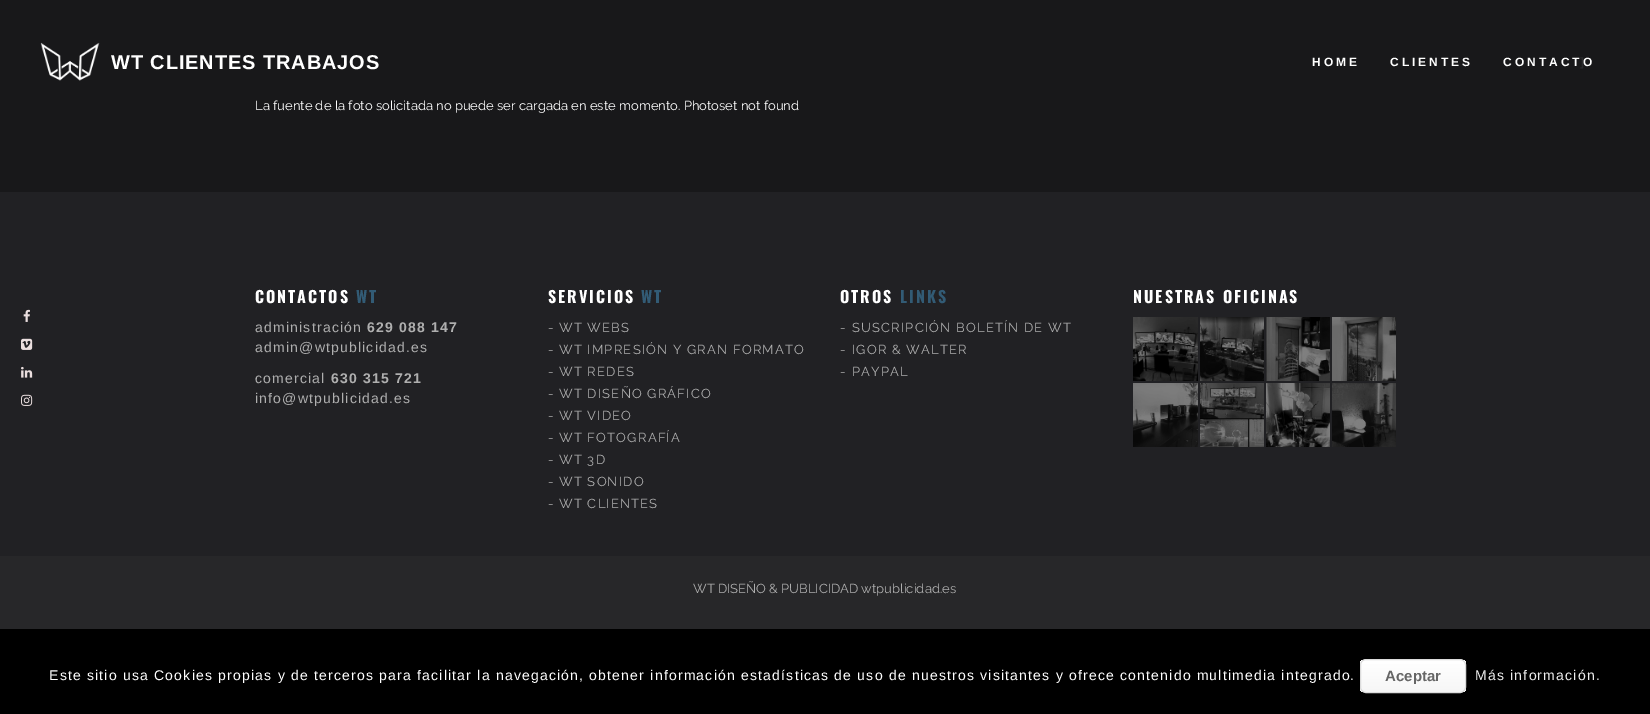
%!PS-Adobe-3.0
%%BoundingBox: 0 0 1650 714
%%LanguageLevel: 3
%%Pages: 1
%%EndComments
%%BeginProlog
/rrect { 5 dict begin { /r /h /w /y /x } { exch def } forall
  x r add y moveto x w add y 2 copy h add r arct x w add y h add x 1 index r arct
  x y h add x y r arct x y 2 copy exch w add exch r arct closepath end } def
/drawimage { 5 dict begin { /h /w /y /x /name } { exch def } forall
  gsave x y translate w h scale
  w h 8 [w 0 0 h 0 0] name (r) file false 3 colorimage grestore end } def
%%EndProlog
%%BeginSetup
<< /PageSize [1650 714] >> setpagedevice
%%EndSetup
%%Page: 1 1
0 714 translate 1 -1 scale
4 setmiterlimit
0.129 0.129 0.141 setrgbcolor
0 0 1650 714 rectfill
0.094 0.094 0.102 setrgbcolor
0 0 1650 192 rectfill
(images/1.raw) 40 42 60 39 drawimage
(images/2.raw) 23 309 7 13 drawimage
(images/3.raw) 21 338 12 12 drawimage
(images/4.raw) 21 366 12 12 drawimage
(images/5.raw) 21 394 12 12 drawimage
(images/6.raw) 1133 317 65 64 drawimage
(images/7.raw) 1200 317 64 64 drawimage
(images/8.raw) 1266 317 64 64 drawimage
(images/9.raw) 1332 317 64 64 drawimage
(images/10.raw) 1133 383 65 64 drawimage
(images/11.raw) 1200 383 64 64 drawimage
(images/12.raw) 1266 383 64 64 drawimage
(images/13.raw) 1332 383 64 64 drawimage
0.153 0.153 0.161 setrgbcolor
0 556 1650 73 rectfill
0 setgray
0 629 1650 85 rectfill
gsave
1360 659 106 34 6 rrect clip newpath
gsave newpath 1360 660 moveto 1466 660 lineto 1466 692 lineto 1360 692 lineto closepath clip newpath
<< /ShadingType 2 /ColorSpace /DeviceRGB /Coords [1413 660 1413 692] /Extend [true true] /Function << /FunctionType 3 /Domain [0 1] /Functions [<< /FunctionType 2 /Domain [0 1] /C0 [1 1 1] /C1 [1 1 1] /N 1 >> << /FunctionType 2 /Domain [0 1] /C0 [1 1 1] /C1 [0.965 0.965 0.965] /N 1 >>] /Bounds [0.05] /Encode [0 1 0 1] >> >> shfill grestore
grestore
1 setgray
newpath 1366 661 moveto 1460 661 lineto 1463 661 1465 663 1465 666 curveto 1465 656 1450 660 1444 660 curveto 1382 660 lineto 1376 660 1361 656 1361 666 curveto 1361 663 1363 661 1366 661 curveto closepath fill
0.863 setgray
1360.5 659.5 105 33 5.5 rrect stroke
/LiberationSans-Bold [20 0 0 -20 0 0] selectfont
1 setgray
111 69 moveto 0.9 0 (WT CLIENTES TRABAJOS) ashow
/LiberationSans-Bold [12 0 0 -12 0 0] selectfont
1312 66 moveto 3 0 (HOME) ashow
1390 66 moveto 3 0 (CLIENTES) ashow
1503 66 moveto 3 0 (CONTACTO) ashow
0.169 0.169 0.176 setrgbcolor
1580 66 moveto 3 0 (]) ashow
/Raleway-Regular [13 0 0 -13 0 0] selectfont
1 setgray
255 110 moveto (La fuente de la foto solicitada no puede ser cargada en este momento. Photoset not found) show
/Oswald-Bold [16 0 0 -16 0 0] selectfont
255 303 moveto 2 0 (CONTACTOS) ashow
0.196 0.357 0.459 setrgbcolor
356 303 moveto 2 0 (WT) ashow
/LiberationSans-Regular [14 0 0 -14 0 0] selectfont
0.686 setgray
255 332 moveto 1.2 0 (administración) ashow
/LiberationSans-Bold [14 0 0 -14 0 0] selectfont
367 332 moveto 1.2 0 (629 088 147) ashow
/LiberationSans-Regular [14 0 0 -14 0 0] selectfont
255 352 moveto 1.2 0 (admin@wtpublicidad.es) ashow
255 383 moveto 1.2 0 (comercial) ashow
/LiberationSans-Bold [14 0 0 -14 0 0] selectfont
331 383 moveto 1.2 0 (630 315 721) ashow
/LiberationSans-Regular [14 0 0 -14 0 0] selectfont
255 403 moveto 1.2 0 (info@wtpublicidad.es) ashow
/Oswald-Bold [16 0 0 -16 0 0] selectfont
1 setgray
548 303 moveto 2 0 (SERVICIOS) ashow
0.196 0.357 0.459 setrgbcolor
641 303 moveto 2 0 (WT) ashow
/Raleway-Regular [13 0 0 -13 0 0] selectfont
0.686 setgray
548 332 moveto 1.2 0 (-) ashow
559 332 moveto 1.2 0 (WT WEBS) ashow
548 354 moveto 1.2 0 (-) ashow
559 354 moveto 1.2 0 (WT IMPRESIÓN Y GRAN FORMATO) ashow
548 376 moveto 1.2 0 (-) ashow
559 376 moveto 1.2 0 (WT REDES) ashow
548 398 moveto 1.2 0 (-) ashow
559 398 moveto 1.2 0 (WT DISEÑO GRÁFICO) ashow
548 420 moveto 1.2 0 (-) ashow
559 420 moveto 1.2 0 (WT VIDEO) ashow
548 442 moveto 1.2 0 (-) ashow
559 442 moveto 1.2 0 (WT FOTOGRAFÍA) ashow
548 464 moveto 1.2 0 (-) ashow
559 464 moveto 1.2 0 (WT 3D) ashow
548 486 moveto 1.2 0 (-) ashow
559 486 moveto 1.2 0 (WT SONIDO) ashow
548 508 moveto 1.2 0 (-) ashow
559 508 moveto 1.2 0 (WT CLIENTES) ashow
/Oswald-Bold [16 0 0 -16 0 0] selectfont
1 setgray
840 303 moveto 2 0 (OTROS) ashow
0.196 0.357 0.459 setrgbcolor
900 303 moveto 2 0 (LINKS) ashow
/Raleway-Regular [13 0 0 -13 0 0] selectfont
0.686 setgray
840 332 moveto 1.2 0 (-) ashow
852 332 moveto 1.2 0 (SUSCRIPCIÓN BOLETÍN DE WT) ashow
840 354 moveto 1.2 0 (-) ashow
852 354 moveto 1.2 0 (IGOR & WALTER) ashow
840 376 moveto 1.2 0 (-) ashow
852 376 moveto 1.2 0 (PAYPAL) ashow
/Oswald-Bold [16 0 0 -16 0 0] selectfont
1 setgray
1133 303 moveto 2 0 (NUESTRAS OFICINAS) ashow
/Raleway-Regular [13 0 0 -13 0 0] selectfont
0.686 setgray
693 593 moveto (WT DISEÑO & PUBLICIDAD wtpublicidad.es) show
/LiberationSans-Regular [14 0 0 -14 0 0] selectfont
1 setgray
49 680 moveto 1.2 0 (Este sitio usa Cookies propias y de terceros para facilitar la navegación, obtener información estadísticas de uso de nuestros visitantes y ofrece contenido multimedia integrado.) ashow
/LiberationSans-Bold [15 0 0 -15 0 0] selectfont
0.4 setgray
1385 681 moveto (Aceptar) show
/LiberationSans-Regular [14 0 0 -14 0 0] selectfont
0.933 setgray
1475 680 moveto 1.2 0 (Más información.) ashow
showpage
%%EOF
